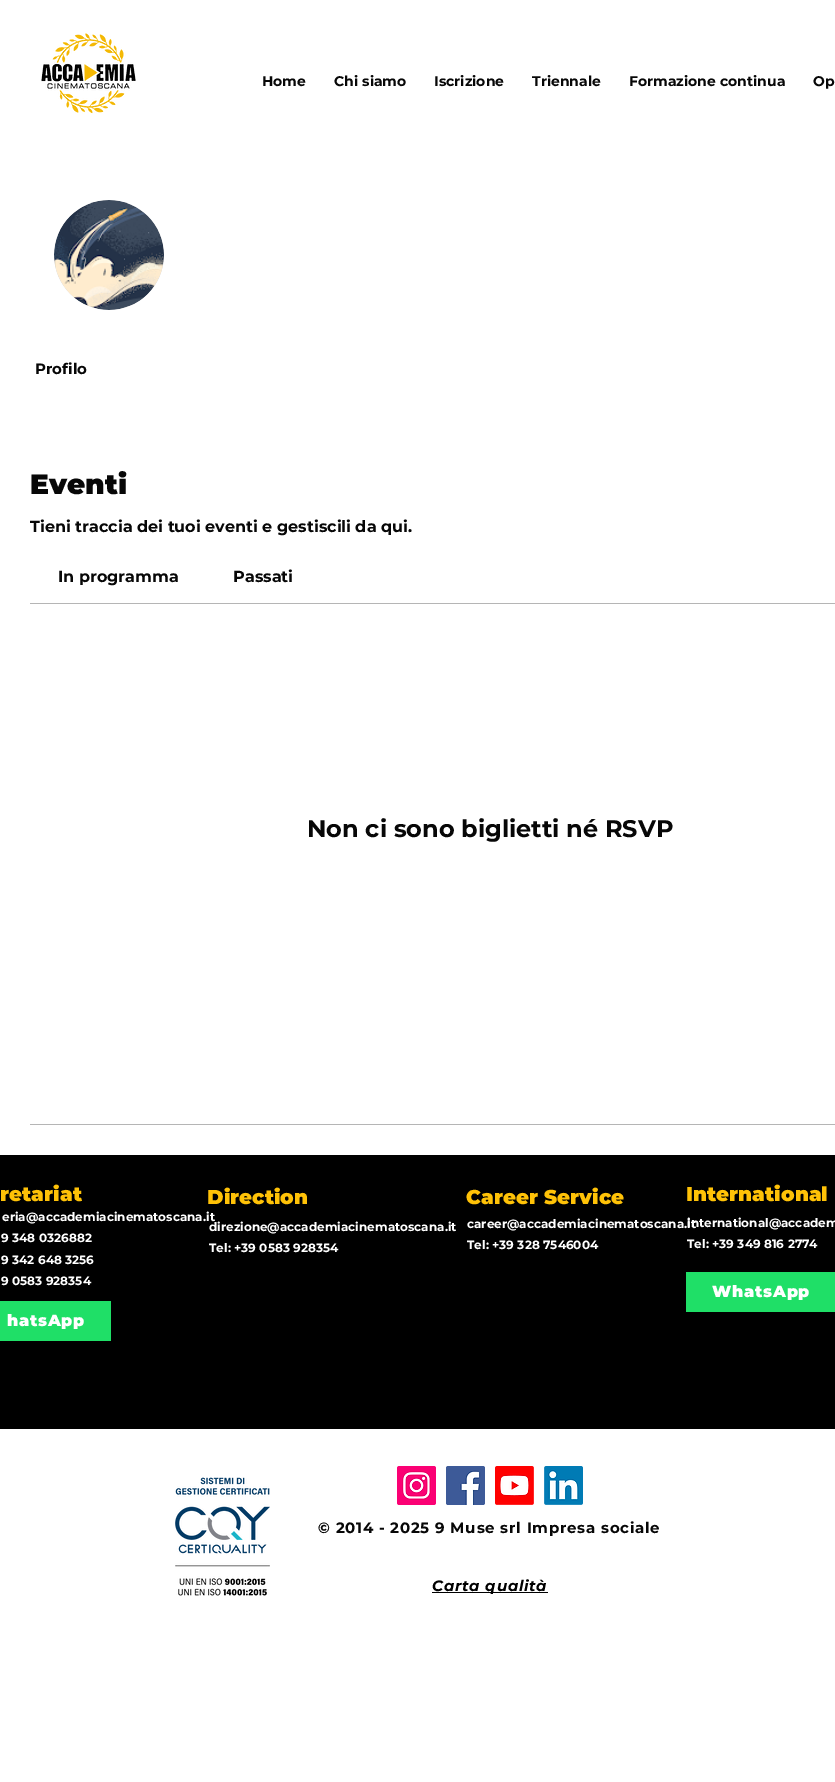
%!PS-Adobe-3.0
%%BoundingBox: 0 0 835 1782
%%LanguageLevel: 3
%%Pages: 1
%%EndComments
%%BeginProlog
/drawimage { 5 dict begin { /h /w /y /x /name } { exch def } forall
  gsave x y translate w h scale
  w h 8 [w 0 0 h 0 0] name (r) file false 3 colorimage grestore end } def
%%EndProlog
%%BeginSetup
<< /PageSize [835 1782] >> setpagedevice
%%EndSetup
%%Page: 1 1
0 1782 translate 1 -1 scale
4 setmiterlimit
1 setgray
0 0 835 1782 rectfill
(images/1.raw) 41 33 95 81 drawimage
0.847 setgray
newpath 109 255 55 0 360 arc closepath fill
(images/2.raw) 54 200 110 110 drawimage
0.71 setgray
30 603 805 1 rectfill
30 1124 805 1 rectfill
0 setgray
0 1155 835 274 rectfill
0.122 0.875 0.404 setrgbcolor
0 1301 111 40 rectfill
686 1272 149 40 rectfill
(images/3.raw) 175 1477 95 119 drawimage
(images/4.raw) 397 1466 39 39 drawimage
(images/5.raw) 446 1466 39 39 drawimage
(images/6.raw) 495 1466 39 39 drawimage
(images/7.raw) 544 1466 39 39 drawimage
0 setgray
432 1592 116 1 rectfill
/Montserrat-Bold [14 0 0 -14 0 0] selectfont
0.027 setgray
262 86 moveto (Home) show
334 86 moveto (Chi siamo) show
434 86 moveto (Iscrizione) show
532 86 moveto (Triennale) show
629 86 moveto (Formazione continua) show
813 86 moveto (Op) show
/Montserrat-Bold [15 0 0 -15 0 0] selectfont
35 374 moveto (Profilo) show
/Montserrat-Thin [28 0 0 -28 0 0] selectfont
30 494 moveto (Eventi) show
/Montserrat-Bold [16 0 0 -16 0 0] selectfont
30 532 moveto (Tieni traccia dei tuoi eventi e gestiscili da qui.) show
58 582 moveto (In programma) show
233 582 moveto (Passati) show
/Montserrat-Bold [24 0 0 -24 0 0] selectfont
307 837 moveto (Non ci sono biglietti né RSVP) show
/Montserrat-Thin [20 0 0 -20 0 0] selectfont
1 0.761 0.027 setrgbcolor
0 1201 moveto (retariat) show
/Montserrat-Bold [12 0 0 -12 0 0] selectfont
1 setgray
2 1221 moveto (eria@accademiacinematoscana.it) show
1 1242 moveto (9 348 0326882) show
1 1264 moveto (9 342 648 3256) show
1 1285 moveto (9 0583 928354) show
/Montserrat-Thin [16 0 0 -16 0 0] selectfont
7 1326 moveto 0.75 0 (hatsApp) ashow
/Montserrat-Thin [20 0 0 -20 0 0] selectfont
1 0.761 0.027 setrgbcolor
207 1204 moveto (Direction) show
/Montserrat-Bold [12 0 0 -12 0 0] selectfont
1 setgray
209 1231 moveto (direzione@accademiacinematoscana.it) show
209 1252 moveto (Tel: +39 0583 928354) show
/Montserrat-Thin [20 0 0 -20 0 0] selectfont
1 0.761 0.027 setrgbcolor
466 1204 moveto (Career Service) show
/Montserrat-Bold [12 0 0 -12 0 0] selectfont
1 setgray
467 1228 moveto (career@accademiacinematoscana.it) show
467 1249 moveto (Tel: +39 328 7546004) show
/Montserrat-Thin [20 0 0 -20 0 0] selectfont
1 0.761 0.027 setrgbcolor
686 1201 moveto (International) show
/Montserrat-Bold [12 0 0 -12 0 0] selectfont
1 setgray
687 1227 moveto (international@accadem) show
687 1248 moveto (Tel: +39 349 816 2774) show
/Montserrat-Thin [16 0 0 -16 0 0] selectfont
712 1297 moveto 0.75 0 (WhatsApp) ashow
/Montserrat-Bold [15 0 0 -15 0 0] selectfont
0.027 setgray
318 1533 moveto 0.75 0 (© 2014 - 2025 9 Muse srl Impresa sociale) ashow
/Montserrat-BoldItalic [15 0 0 -15 0 0] selectfont
0 setgray
432 1591 moveto 0.75 0 (Carta qualità) ashow
showpage
%%EOF
